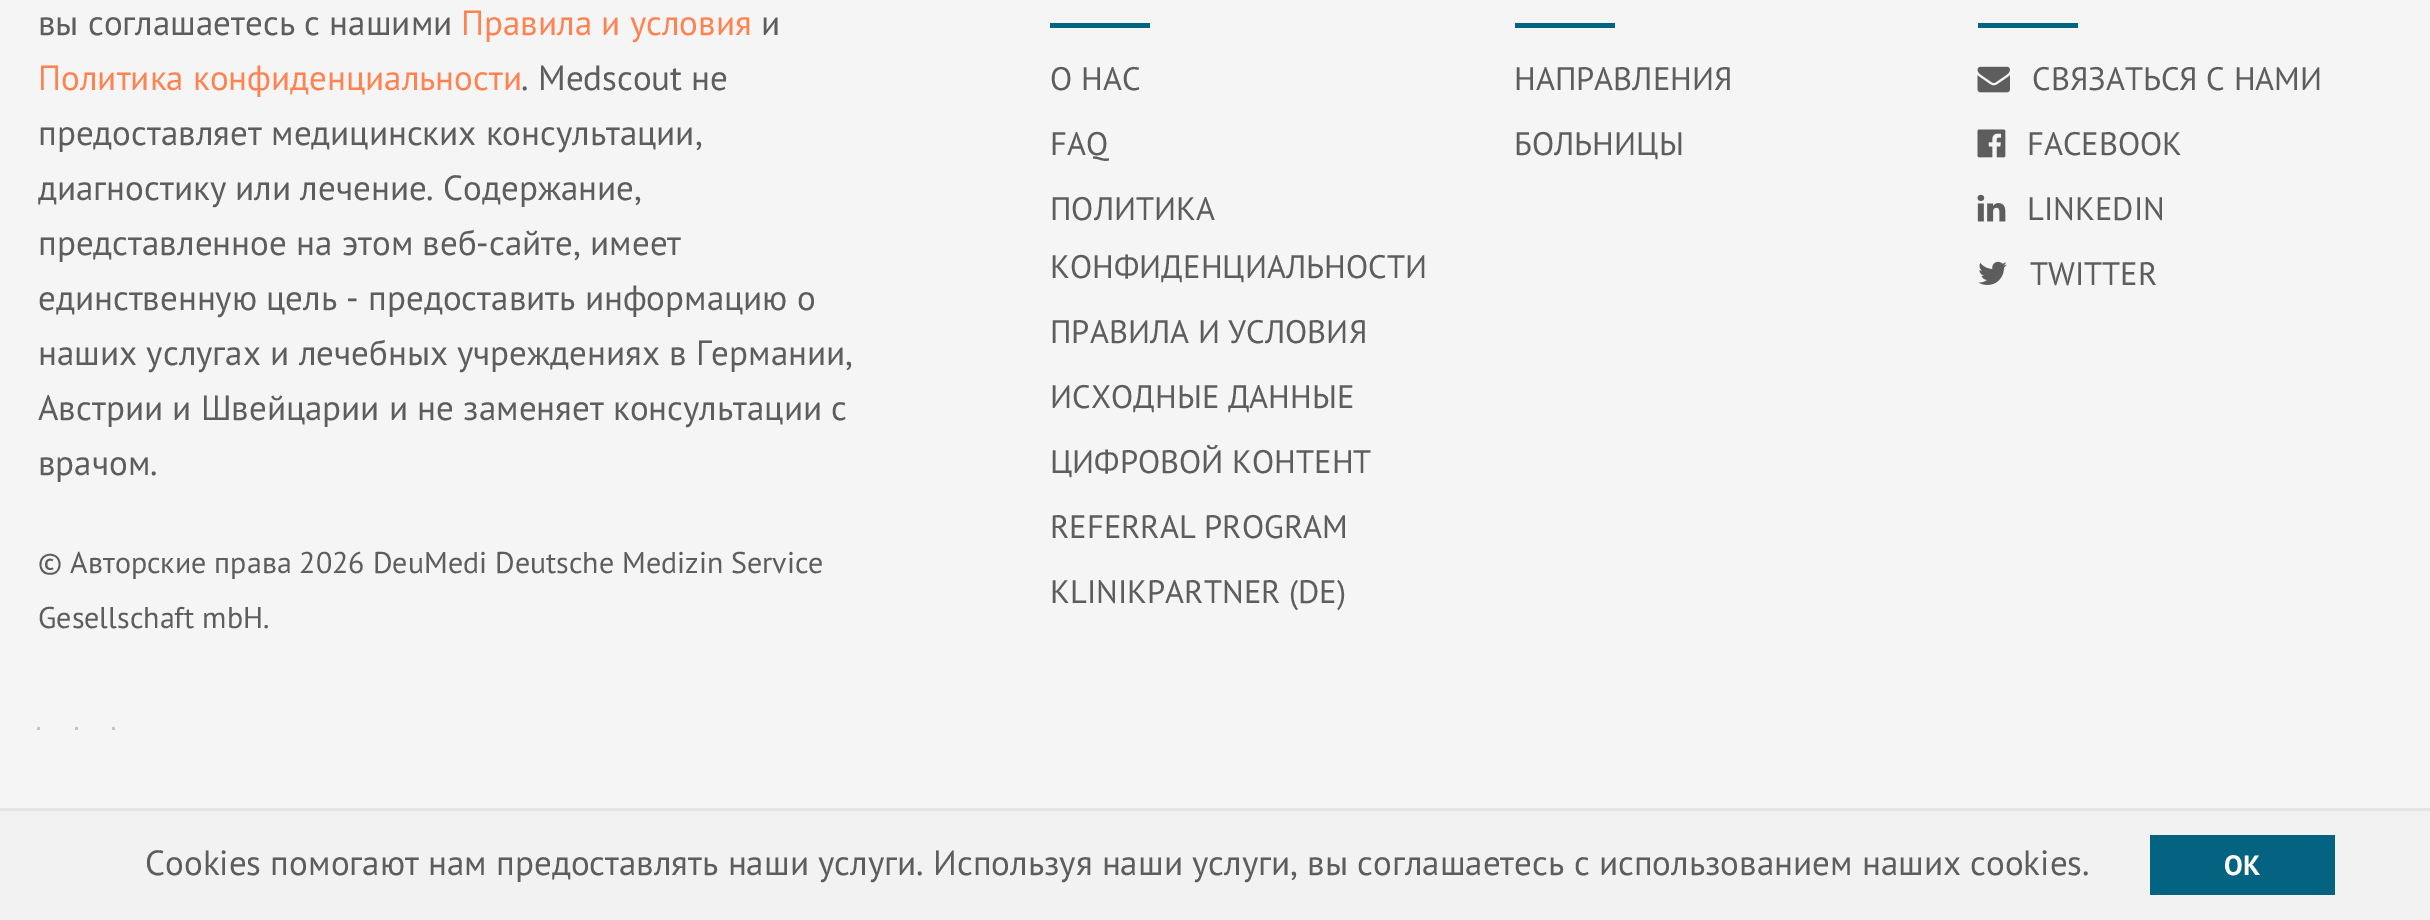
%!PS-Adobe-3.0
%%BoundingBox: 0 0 2430 920
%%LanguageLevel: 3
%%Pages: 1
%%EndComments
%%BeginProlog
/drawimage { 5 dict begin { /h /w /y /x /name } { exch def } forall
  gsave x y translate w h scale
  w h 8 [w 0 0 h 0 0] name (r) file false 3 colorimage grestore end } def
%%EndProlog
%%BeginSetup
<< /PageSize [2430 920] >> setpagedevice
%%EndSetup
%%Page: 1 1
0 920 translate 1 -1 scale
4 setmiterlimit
0.961 setgray
0 0 2430 920 rectfill
0.765 setgray
37 727 3 3 rectfill
75 727 3 3 rectfill
112 727 3 3 rectfill
0.016 0.388 0.502 setrgbcolor
1050 23 100 5 rectfill
1515 23 100 5 rectfill
1978 23 100 5 rectfill
(images/1.raw) 1977 66 33 27 drawimage
(images/2.raw) 1977 129 29 29 drawimage
(images/3.raw) 1977 194 29 28 drawimage
(images/4.raw) 1978 261 29 24 drawimage
0.949 setgray
0 811 2430 109 rectfill
0.894 setgray
0 808 2430 3 rectfill
0.016 0.388 0.502 setrgbcolor
2150 835 185 60 rectfill
/PTSans-Regular [35 0 0 -35 0 0] selectfont
0.365 setgray
38 35 moveto (вы соглашаетесь с нашими) show
1 0.514 0.318 setrgbcolor
461 35 moveto (Правила и условия) show
0.365 setgray
761 35 moveto (и) show
1 0.514 0.318 setrgbcolor
38 90 moveto (Политика конфиденциальности) show
0.365 setgray
521 90 moveto (. Medscout не) show
38 145 moveto (предоставляет медицинских консультации,) show
38 200 moveto (диагностику или лечение. Содержание,) show
38 255 moveto (представленное на этом веб-сайте, имеет) show
38 310 moveto (единственную цель - предоставить информацию о) show
38 365 moveto (наших услугах и лечебных учреждениях в Германии,) show
38 420 moveto (Австрии и Швейцарии и не заменяет консультации с) show
38 475 moveto (врачом.) show
/PTSans-Regular [30 0 0 -30 0 0] selectfont
38 573 moveto (© Авторские права 2026 DeuMedi Deutsche Medizin Service) show
38 628 moveto (Gesellschaft mbH.) show
/PTSans-Regular [32.5 0 0 -32.5 0 0] selectfont
1050 90 moveto (О НАС) show
1050 155 moveto (FAQ) show
1050 220 moveto (ПОЛИТИКА) show
1050 278 moveto (КОНФИДЕНЦИАЛЬНОСТИ) show
1050 343 moveto (ПРАВИЛА И УСЛОВИЯ) show
1050 408 moveto (ИСХОДНЫЕ ДАННЫЕ) show
1050 473 moveto (ЦИФРОВОЙ КОНТЕНТ) show
1050 538 moveto (REFERRAL PROGRAM) show
1050 603 moveto (KLINIKPARTNER \(DE\)) show
1514 90 moveto (НАПРАВЛЕНИЯ) show
1514 155 moveto (БОЛЬНИЦЫ) show
2032 90 moveto (СВЯЗАТЬСЯ С НАМИ) show
2027 155 moveto (FACEBOOK) show
2027 220 moveto (LINKEDIN) show
2030 285 moveto (TWITTER) show
/PTSans-Regular [35 0 0 -35 0 0] selectfont
145 875 moveto (Cookies помогают нам предоставлять наши услуги. Используя наши услуги, вы соглашаетесь с использованием наших cookies.) show
/PTSans-Bold [28 0 0 -28 0 0] selectfont
1 setgray
2224 875 moveto (OK) show
showpage
%%EOF
